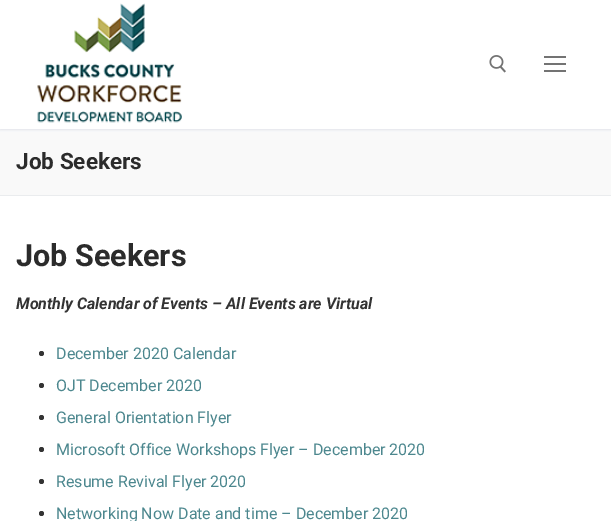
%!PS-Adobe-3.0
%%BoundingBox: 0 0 611 521
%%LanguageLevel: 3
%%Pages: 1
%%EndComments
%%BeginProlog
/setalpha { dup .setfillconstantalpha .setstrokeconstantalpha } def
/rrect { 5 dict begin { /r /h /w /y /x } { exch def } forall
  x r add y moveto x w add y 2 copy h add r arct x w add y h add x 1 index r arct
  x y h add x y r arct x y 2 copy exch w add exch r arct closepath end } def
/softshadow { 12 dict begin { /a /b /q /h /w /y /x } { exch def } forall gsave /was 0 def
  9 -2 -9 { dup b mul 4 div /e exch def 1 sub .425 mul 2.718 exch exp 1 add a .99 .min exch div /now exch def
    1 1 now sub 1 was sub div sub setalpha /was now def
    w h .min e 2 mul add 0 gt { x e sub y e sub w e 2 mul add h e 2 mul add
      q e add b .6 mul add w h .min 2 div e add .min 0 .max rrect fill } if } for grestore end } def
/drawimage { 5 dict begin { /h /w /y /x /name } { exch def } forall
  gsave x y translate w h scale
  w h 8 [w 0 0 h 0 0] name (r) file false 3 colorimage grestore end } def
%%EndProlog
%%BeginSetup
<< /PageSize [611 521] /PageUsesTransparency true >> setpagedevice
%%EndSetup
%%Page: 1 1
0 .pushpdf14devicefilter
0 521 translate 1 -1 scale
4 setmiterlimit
1 setgray
0 0 611 521 rectfill
0.976 setgray
0 129 611 66 rectfill
gsave
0 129 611 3 rectclip
0.882 0.898 0.918 setrgbcolor
0 1 611 129 0 1 1 softshadow
grestore
(images/1.raw) 37 3 145 120 drawimage
(images/2.raw) 489 55 17 18 drawimage
0.451 setgray
544 63 22 2 rectfill
544 56 22 2 rectfill
544 70 22 2 rectfill
0.918 0.925 0.933 setrgbcolor
0 195 611 1 rectfill
0.2 setgray
newpath 41.5 353.5 2.5 0 360 arc closepath fill
newpath 41.5 385.5 2.5 0 360 arc closepath fill
newpath 41.5 417.5 2.5 0 360 arc closepath fill
newpath 41.5 449.5 2.5 0 360 arc closepath fill
newpath 41.5 481.5 2.5 0 360 arc closepath fill
newpath 41.5 513.5 2.5 0 360 arc closepath fill
/Roboto-Bold [22.5 0 0 -22.5 0 0] selectfont
0.169 setgray
16 169 moveto (Job Seekers) show
/Roboto-Bold [30.5 0 0 -30.5 0 0] selectfont
16 266 moveto (Job Seekers) show
/Roboto-BoldItalic [16 0 0 -16 0 0] selectfont
0.2 setgray
16 309 moveto (Monthly Calendar of Events – All Events are Virtual) show
/Roboto-Regular [16 0 0 -16 0 0] selectfont
0.298 0.529 0.557 setrgbcolor
56 359 moveto (December 2020 Calendar) show
56 391 moveto (OJT December 2020) show
56 423 moveto (General Orientation Flyer) show
56 455 moveto (Microsoft Office Workshops Flyer – December 2020) show
56 487 moveto (Resume Revival Flyer 2020) show
56 519 moveto (Networking Now Date and time – December 2020) show
.poppdf14devicefilter showpage
%%EOF
